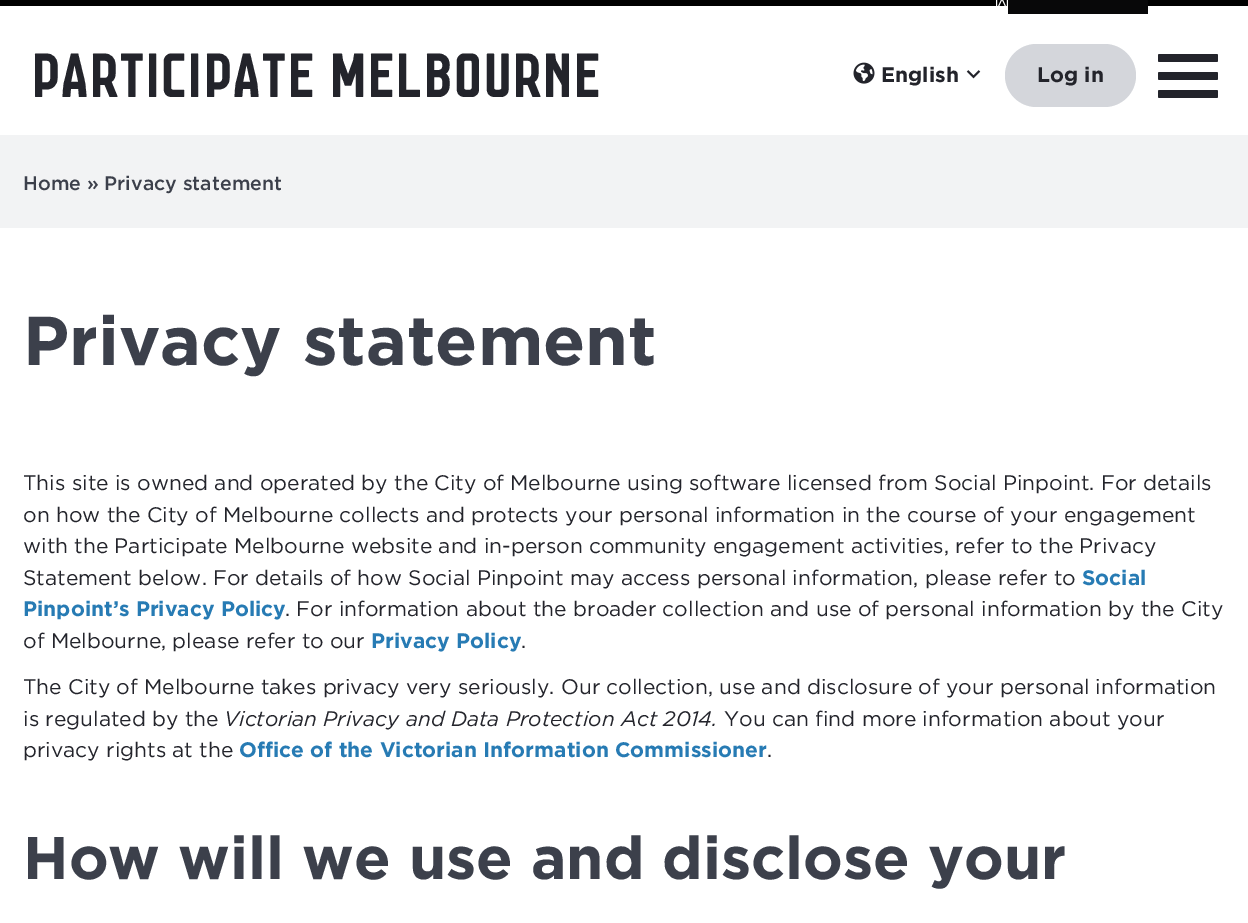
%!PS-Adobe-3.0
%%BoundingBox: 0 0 1248 923
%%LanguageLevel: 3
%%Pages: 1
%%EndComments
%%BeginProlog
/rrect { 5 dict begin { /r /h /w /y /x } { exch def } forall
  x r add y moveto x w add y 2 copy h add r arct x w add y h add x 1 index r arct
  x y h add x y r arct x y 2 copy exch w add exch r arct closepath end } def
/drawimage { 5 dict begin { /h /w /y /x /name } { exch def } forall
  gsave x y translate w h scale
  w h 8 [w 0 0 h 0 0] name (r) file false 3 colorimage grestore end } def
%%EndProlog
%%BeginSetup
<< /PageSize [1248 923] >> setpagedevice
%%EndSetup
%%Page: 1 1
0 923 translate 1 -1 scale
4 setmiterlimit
1 setgray
0 0 1248 923 rectfill
0 setgray
0 0 1248 6 rectfill
0.031 0.031 0.035 setrgbcolor
1008 0 140 14 rectfill
(images/1.raw) 996 0 12 6 drawimage
(images/2.raw) 853 62 22 22 drawimage
(images/3.raw) 966 70 15 9 drawimage
0.831 0.839 0.859 setrgbcolor
1005 44 131 63 31.5 rrect fill
0.137 0.141 0.169 setrgbcolor
1158 54 60 8 1.5 rrect fill
1158 72 60 8 1.5 rrect fill
1158 90 60 8 1.5 rrect fill
0.949 0.953 0.957 setrgbcolor
0 135 1248 93 rectfill
/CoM-Regular [66 0 0 -66 0 0] selectfont
0.137 0.141 0.169 setrgbcolor
31 97 moveto (Participate Melbourne) show
/Gotham-Bold [21 0 0 -21 0 0] selectfont
881 82 moveto (English) show
1037 82 moveto (Log in) show
/Gotham-Medium [19.5 0 0 -19.5 0 0] selectfont
0.235 0.251 0.294 setrgbcolor
23 190 moveto (Home » Privacy statement) show
/Gotham-Bold [69 0 0 -69 0 0] selectfont
23 365 moveto (Privacy statement) show
/Gotham-Regular [21 0 0 -21 0 0] selectfont
0.137 0.141 0.169 setrgbcolor
23 490 moveto (This site is owned and operated by the City of Melbourne using software licensed from Social Pinpoint. For details) show
23 522 moveto (on how the City of Melbourne collects and protects your personal information in the course of your engagement) show
23 553 moveto (with the Participate Melbourne website and in-person community engagement activities, refer to the Privacy) show
23 585 moveto (Statement below. For details of how Social Pinpoint may access personal information, please refer to) show
/Gotham-Bold [21 0 0 -21 0 0] selectfont
0.153 0.482 0.706 setrgbcolor
1082 585 moveto (Social) show
23 616 moveto (Pinpoint’s Privacy Policy) show
/Gotham-Regular [21 0 0 -21 0 0] selectfont
0.137 0.141 0.169 setrgbcolor
285 616 moveto (. For information about the broader collection and use of personal information by the City) show
23 648 moveto (of Melbourne, please refer to our) show
/Gotham-Bold [21 0 0 -21 0 0] selectfont
0.153 0.482 0.706 setrgbcolor
371 648 moveto (Privacy Policy) show
/Gotham-Regular [21 0 0 -21 0 0] selectfont
0.137 0.141 0.169 setrgbcolor
521 648 moveto (.) show
23 694 moveto (The City of Melbourne takes privacy very seriously. Our collection, use and disclosure of your personal information) show
23 726 moveto (is regulated by the) show
/Gotham-Italic [21 0 0 -21 0 0] selectfont
224 726 moveto (Victorian Privacy and Data Protection Act 2014.) show
/Gotham-Regular [21 0 0 -21 0 0] selectfont
724 726 moveto (You can find more information about your) show
23 757 moveto (privacy rights at the) show
/Gotham-Bold [21 0 0 -21 0 0] selectfont
0.153 0.482 0.706 setrgbcolor
239 757 moveto (Office of the Victorian Information Commissioner) show
/Gotham-Regular [21 0 0 -21 0 0] selectfont
0.137 0.141 0.169 setrgbcolor
767 757 moveto (.) show
/Gotham-Bold [60 0 0 -60 0 0] selectfont
0.235 0.251 0.294 setrgbcolor
23 879 moveto (How will we use and disclose your) show
showpage
%%EOF
